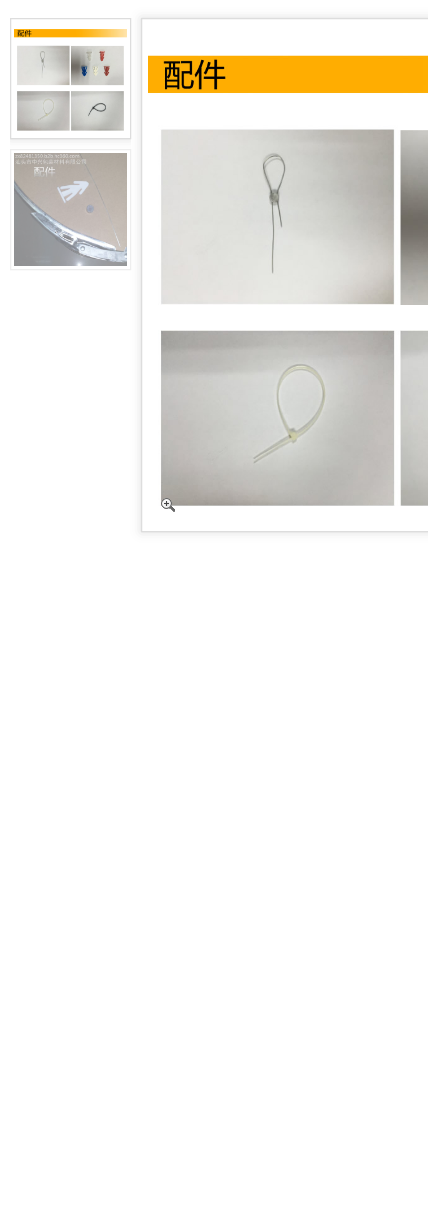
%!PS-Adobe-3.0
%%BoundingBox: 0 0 428 1230
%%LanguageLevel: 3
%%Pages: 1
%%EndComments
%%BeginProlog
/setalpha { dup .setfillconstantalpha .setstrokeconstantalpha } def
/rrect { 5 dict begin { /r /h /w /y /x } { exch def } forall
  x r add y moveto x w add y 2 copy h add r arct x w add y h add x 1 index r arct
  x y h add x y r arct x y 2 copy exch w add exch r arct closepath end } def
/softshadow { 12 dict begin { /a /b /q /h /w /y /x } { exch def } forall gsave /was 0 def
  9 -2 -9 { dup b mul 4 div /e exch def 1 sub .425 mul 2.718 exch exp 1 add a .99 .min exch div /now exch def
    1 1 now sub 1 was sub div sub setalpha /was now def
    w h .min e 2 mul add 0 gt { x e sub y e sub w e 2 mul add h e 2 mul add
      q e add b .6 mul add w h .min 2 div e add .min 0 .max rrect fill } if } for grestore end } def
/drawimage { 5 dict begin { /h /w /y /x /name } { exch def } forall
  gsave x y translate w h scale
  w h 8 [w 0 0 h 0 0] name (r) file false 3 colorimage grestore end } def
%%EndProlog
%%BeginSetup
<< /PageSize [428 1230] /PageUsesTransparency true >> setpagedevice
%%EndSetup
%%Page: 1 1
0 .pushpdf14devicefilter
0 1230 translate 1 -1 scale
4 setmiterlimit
1 setgray
0 0 428 1230 rectfill
gsave
newpath 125 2 moveto 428 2 lineto 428 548 lineto 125 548 lineto closepath 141 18 moveto 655 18 lineto 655 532 lineto 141 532 lineto closepath eoclip newpath
0.867 setgray
141 18 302 514 0 5 1 softshadow
grestore
0.867 setgray
141.5 18.5 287 513 rectstroke
gsave
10 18 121 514 rectclip
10 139 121 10 rectclip
10 18 121 121 0 5 1 softshadow
grestore
10.5 18.5 120 120 rectstroke
(images/1.raw) 14 29 113 102 drawimage
0.933 setgray
10.5 149.5 120 120 rectstroke
(images/2.raw) 14 153 113 113 drawimage
(images/3.raw) 148 55 280 451 drawimage
(images/4.raw) 161 498 14 14 drawimage
.poppdf14devicefilter showpage
%%EOF
